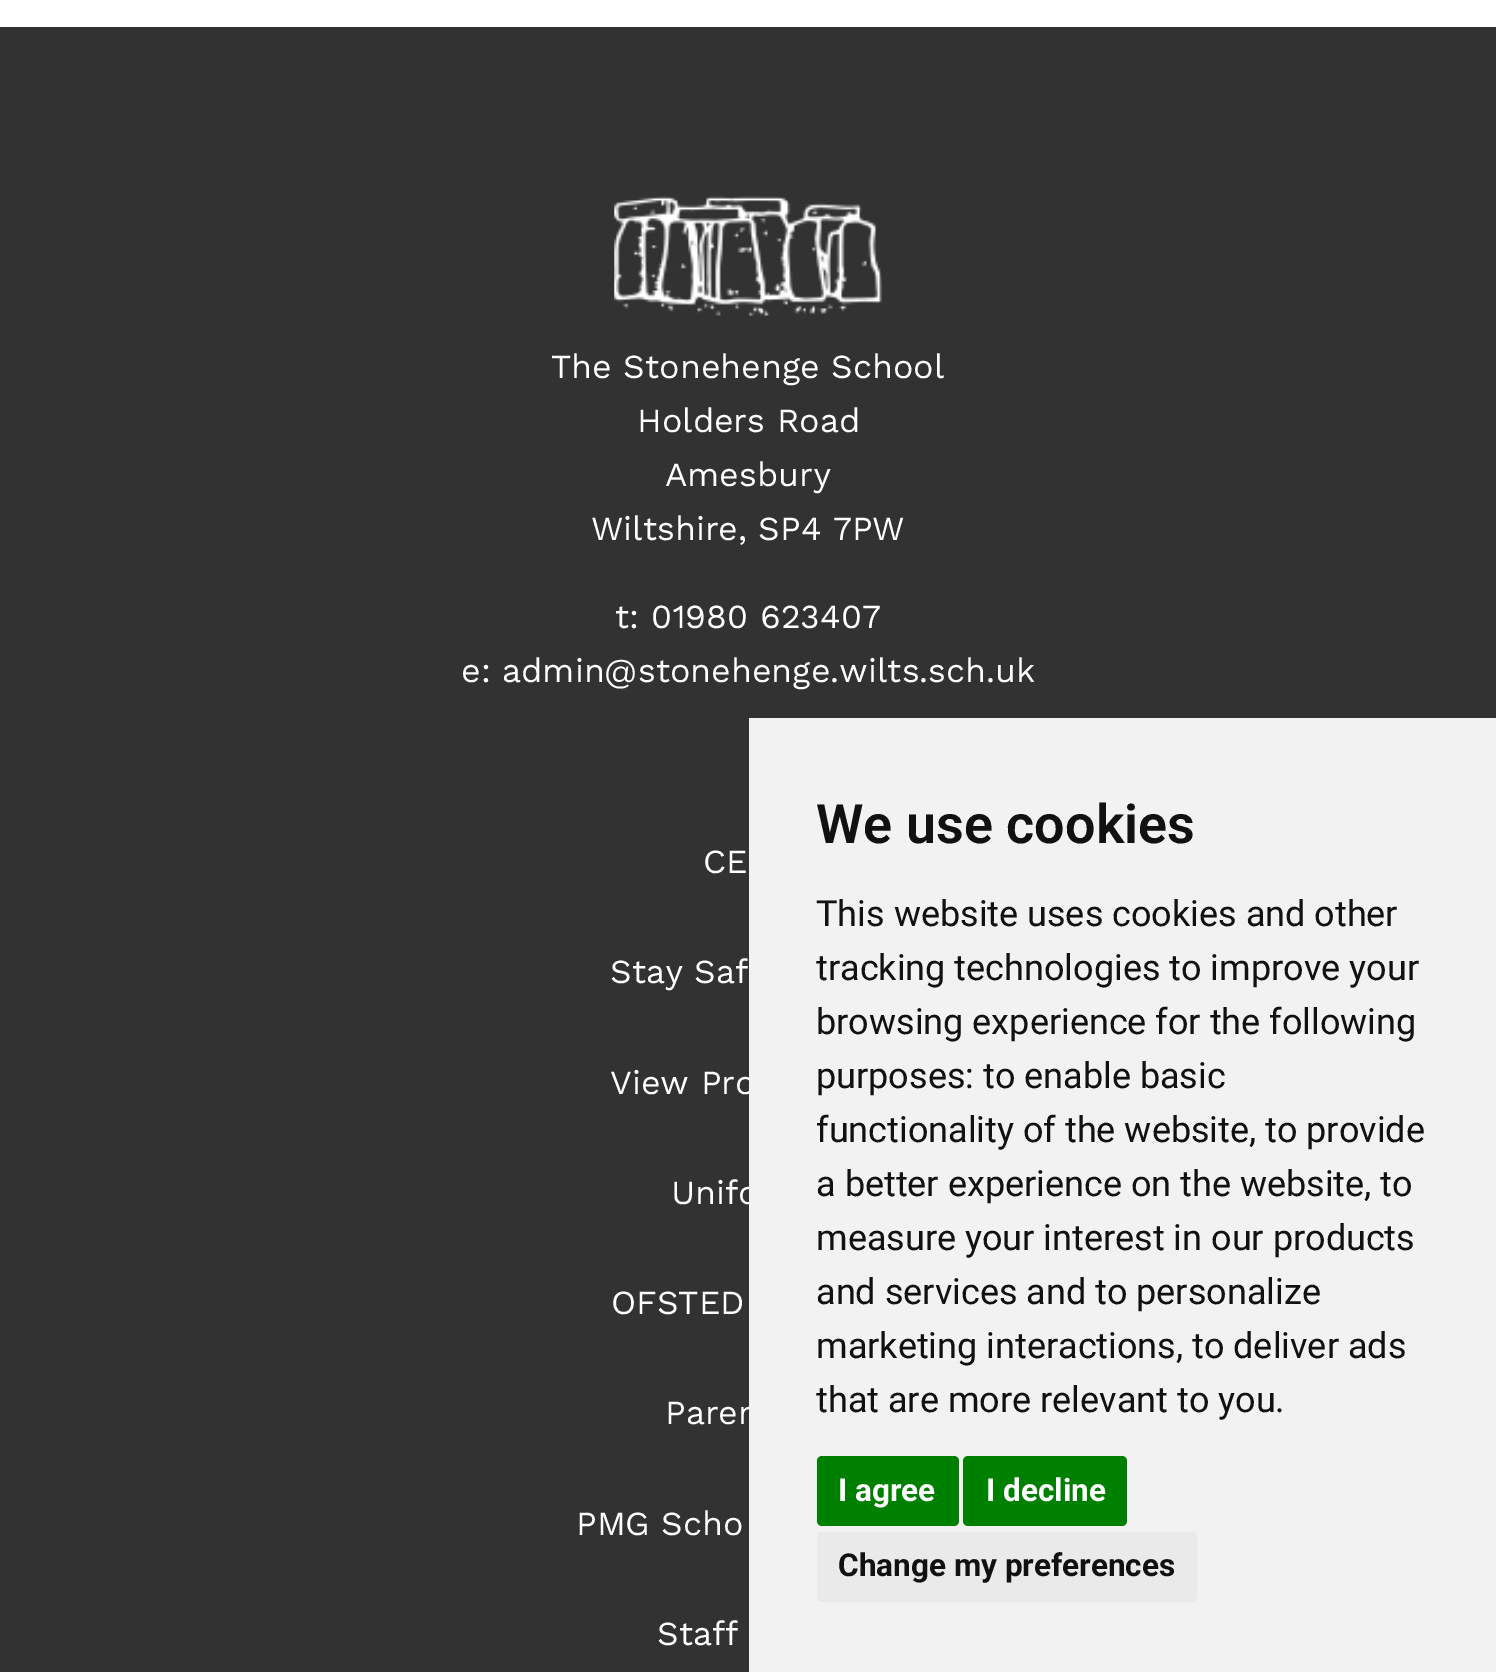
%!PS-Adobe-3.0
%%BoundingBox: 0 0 1496 1672
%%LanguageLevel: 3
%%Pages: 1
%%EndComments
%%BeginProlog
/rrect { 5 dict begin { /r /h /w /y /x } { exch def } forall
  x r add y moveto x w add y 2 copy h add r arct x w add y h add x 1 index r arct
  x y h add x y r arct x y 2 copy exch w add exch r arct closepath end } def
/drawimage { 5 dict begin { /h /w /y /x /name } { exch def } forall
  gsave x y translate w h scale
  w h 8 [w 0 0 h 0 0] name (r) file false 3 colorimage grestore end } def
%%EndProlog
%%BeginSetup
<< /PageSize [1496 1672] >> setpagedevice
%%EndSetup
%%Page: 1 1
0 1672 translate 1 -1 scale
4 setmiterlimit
1 setgray
0 0 1496 1672 rectfill
0.196 setgray
0 27 1496 1645 rectfill
(images/1.raw) 614 196 268 121 drawimage
/WorkSans-Regular [33.75 0 0 -33.75 0 0] selectfont
1 setgray
551 378 moveto (The Stonehenge School) show
637 432 moveto (Holders Road) show
665 486 moveto (Amesbury) show
591 540 moveto (Wiltshire, SP4 7PW) show
615 628 moveto (t: 01980 623407) show
461 682 moveto (e: admin@stonehenge.wilts.sch.uk) show
703 873 moveto (CE) show
610 983 moveto (Stay Saf) show
610 1094 moveto (View Pro) show
671 1204 moveto (Unifo) show
611 1314 moveto (OFSTED) show
665 1424 moveto (Paren) show
576 1535 moveto (PMG Scho) show
657 1645 moveto (Staff) show
0.949 setgray
749 718 747 954 rectfill
/Roboto-SemiBold [54 0 0 -54 0 0] selectfont
0.067 setgray
816 843 moveto (We use cookies) show
/Roboto-Regular [36 0 0 -36 0 0] selectfont
816 926 moveto (This website uses cookies and other) show
816 980 moveto (tracking technologies to improve your) show
816 1034 moveto (browsing experience for the following) show
816 1088 moveto (purposes: to enable basic) show
816 1142 moveto (functionality of the website, to provide) show
816 1196 moveto (a better experience on the website, to) show
816 1250 moveto (measure your interest in our products) show
816 1304 moveto (and services and to personalize) show
816 1358 moveto (marketing interactions, to deliver ads) show
816 1412 moveto (that are more relevant to you.) show
0 0.502 0 setrgbcolor
817 1456 142 70 5 rrect fill
/Roboto-Bold [31.5 0 0 -31.5 0 0] selectfont
1 setgray
838 1501 moveto (I agree) show
0 0.502 0 setrgbcolor
963 1456 164 70 5 rrect fill
1 setgray
986 1501 moveto (I decline) show
0.918 setgray
817 1532 380 70 5 rrect fill
0.067 setgray
838 1576 moveto (Change my preferences) show
showpage
%%EOF
